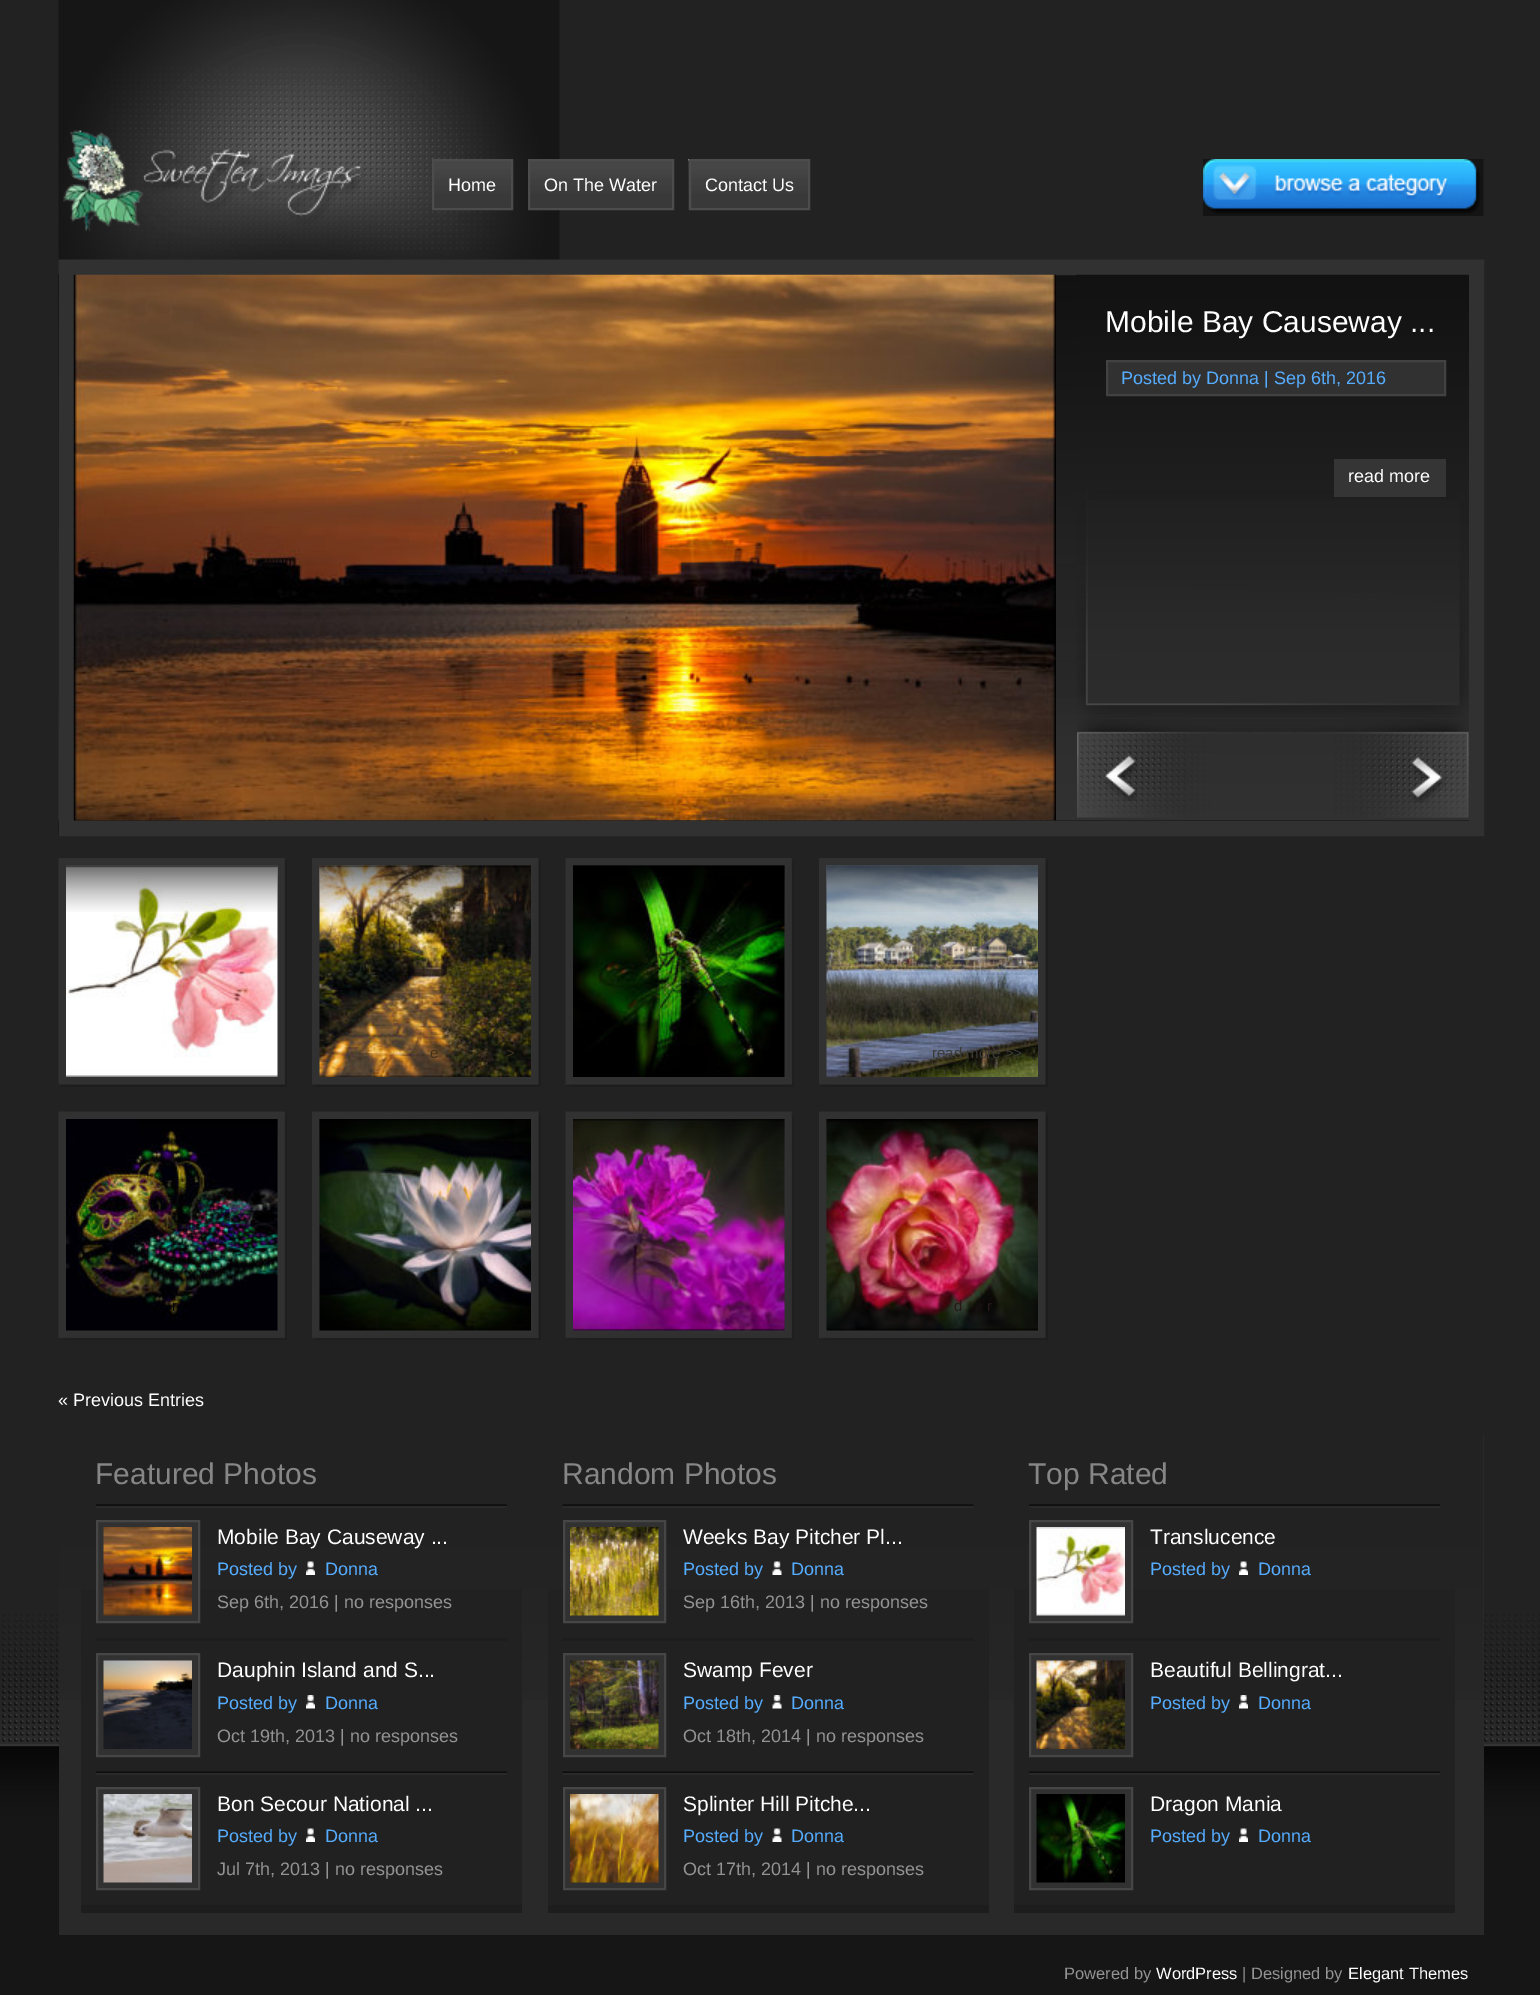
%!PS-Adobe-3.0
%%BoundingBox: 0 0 1540 1995
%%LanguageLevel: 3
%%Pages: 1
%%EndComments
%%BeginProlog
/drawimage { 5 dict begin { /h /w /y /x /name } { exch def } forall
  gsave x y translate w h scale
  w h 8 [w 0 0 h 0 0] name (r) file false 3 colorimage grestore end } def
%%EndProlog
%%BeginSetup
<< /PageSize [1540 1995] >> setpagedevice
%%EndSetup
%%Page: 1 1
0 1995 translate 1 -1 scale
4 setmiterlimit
0.133 setgray
0 0 1540 1995 rectfill
(images/1.raw) 0 1614 1540 321 drawimage
(images/2.raw) 58 0 502 324 drawimage
(images/3.raw) 63 130 301 102 drawimage
(images/4.raw) 434 161 77 47 drawimage
0.298 setgray
2 setlinewidth
433 160 79 49 rectstroke
(images/5.raw) 530 161 142 47 drawimage
529 160 144 49 rectstroke
(images/6.raw) 688 159 120 51 drawimage
690 160 119 49 rectstroke
(images/7.raw) 1203 159 281 57 drawimage
(images/8.raw) 58 259 1426 577 drawimage
0.192 setgray
15 setlinewidth
66.5 267.5 1410 561 rectstroke
(images/9.raw) 73 274 983 547 drawimage
(images/10.raw) 1076 274 393 444 drawimage
newpath 1107 361 moveto 1445 361 lineto 1445 395 lineto 1107 395 lineto closepath gsave fill grestore
0.259 setgray
2 setlinewidth
stroke
0.208 setgray
1334 459 112 38 rectfill
(images/11.raw) 1077 718 392 100 drawimage
(images/12.raw) 1092 745 45 56 drawimage
(images/13.raw) 1393 749 61 54 drawimage
(images/14.raw) 58 858 229 229 drawimage
(images/15.raw) 66 865 212 212 drawimage
(images/16.raw) 66 865 212 47 drawimage
(images/17.raw) 312 858 229 229 drawimage
(images/18.raw) 319 865 212 212 drawimage
(images/19.raw) 319 865 212 47 drawimage
(images/14.raw) 565 858 229 229 drawimage
(images/20.raw) 573 865 212 212 drawimage
(images/21.raw) 573 865 212 47 drawimage
(images/17.raw) 819 858 229 229 drawimage
(images/22.raw) 826 865 212 212 drawimage
(images/23.raw) 826 865 212 47 drawimage
(images/24.raw) 58 1111 229 229 drawimage
(images/25.raw) 66 1119 212 212 drawimage
(images/26.raw) 138 1119 140 43 drawimage
(images/27.raw) 312 1111 229 229 drawimage
(images/28.raw) 319 1119 212 212 drawimage
(images/29.raw) 319 1119 195 40 drawimage
(images/24.raw) 565 1111 229 229 drawimage
(images/30.raw) 573 1119 212 212 drawimage
(images/31.raw) 573 1119 212 47 drawimage
(images/27.raw) 819 1111 229 229 drawimage
(images/32.raw) 826 1119 212 212 drawimage
(images/33.raw) 826 1119 212 47 drawimage
0.161 setgray
59 1434 1425 501 rectfill
(images/34.raw) 58 1434 1425 266 drawimage
0.129 setgray
81 1589 441 316 rectfill
0.114 setgray
81 1905 441 8 rectfill
(images/35.raw) 96 1504 411 4 drawimage
0.192 setgray
newpath 97 1521 moveto 199 1521 lineto 199 1622 lineto 97 1622 lineto closepath gsave fill grestore
0.275 setgray
stroke
(images/36.raw) 103 1527 89 89 drawimage
(images/37.raw) 306 1561 9 14 drawimage
0.114 setgray
96 1638 411 3 rectfill
0.192 setgray
newpath 97 1654 moveto 199 1654 lineto 199 1756 lineto 97 1756 lineto closepath gsave fill grestore
0.275 setgray
stroke
(images/38.raw) 103 1660 89 89 drawimage
(images/39.raw) 306 1695 9 14 drawimage
(images/35.raw) 96 1771 411 4 drawimage
0.192 setgray
newpath 97 1788 moveto 199 1788 lineto 199 1889 lineto 97 1889 lineto closepath gsave fill grestore
0.275 setgray
stroke
(images/40.raw) 103 1794 89 89 drawimage
(images/37.raw) 306 1828 9 14 drawimage
0.129 setgray
548 1589 441 316 rectfill
0.114 setgray
548 1905 441 8 rectfill
(images/41.raw) 562 1504 412 4 drawimage
0.192 setgray
newpath 564 1521 moveto 665 1521 lineto 665 1622 lineto 564 1622 lineto closepath gsave fill grestore
0.275 setgray
stroke
(images/42.raw) 570 1527 89 89 drawimage
(images/43.raw) 772 1561 10 14 drawimage
0.114 setgray
562 1638 412 3 rectfill
0.192 setgray
newpath 564 1654 moveto 665 1654 lineto 665 1756 lineto 564 1756 lineto closepath gsave fill grestore
0.275 setgray
stroke
(images/44.raw) 570 1660 89 89 drawimage
(images/45.raw) 772 1695 10 14 drawimage
(images/41.raw) 562 1771 412 4 drawimage
0.192 setgray
newpath 564 1788 moveto 665 1788 lineto 665 1889 lineto 564 1889 lineto closepath gsave fill grestore
0.275 setgray
stroke
(images/46.raw) 570 1794 89 89 drawimage
(images/43.raw) 772 1828 10 14 drawimage
0.129 setgray
1014 1589 441 316 rectfill
0.114 setgray
1014 1905 441 8 rectfill
(images/35.raw) 1029 1504 411 4 drawimage
0.192 setgray
newpath 1030 1521 moveto 1132 1521 lineto 1132 1622 lineto 1030 1622 lineto closepath gsave fill grestore
0.275 setgray
stroke
(images/47.raw) 1036 1527 89 89 drawimage
(images/37.raw) 1239 1561 9 14 drawimage
0.114 setgray
1029 1638 411 3 rectfill
0.192 setgray
newpath 1030 1654 moveto 1132 1654 lineto 1132 1756 lineto 1030 1756 lineto closepath gsave fill grestore
0.275 setgray
stroke
(images/48.raw) 1036 1660 89 89 drawimage
(images/39.raw) 1239 1695 9 14 drawimage
(images/35.raw) 1029 1771 411 4 drawimage
0.192 setgray
newpath 1030 1788 moveto 1132 1788 lineto 1132 1889 lineto 1030 1889 lineto closepath gsave fill grestore
0.275 setgray
stroke
(images/49.raw) 1036 1794 89 89 drawimage
(images/37.raw) 1239 1828 9 14 drawimage
0.086 setgray
0 1935 1540 60 rectfill
/LiberationSans-Regular [18 0 0 -18 0 0] selectfont
1 setgray
448 191 moveto (Home) show
544 191 moveto (On The Water) show
705 191 moveto (Contact Us) show
/LiberationSans-Regular [30 0 0 -30 0 0] selectfont
1105 332 moveto (Mobile Bay Causeway ...) show
/LiberationSans-Regular [18 0 0 -18 0 0] selectfont
0.337 0.678 1 setrgbcolor
1121 384 moveto (Posted by Donna | Sep 6th, 2016) show
1 setgray
1348 482 moveto (read more) show
/LiberationSans-Regular [15 0 0 -15 0 0] selectfont
0.247 0.196 0.11 setrgbcolor
430 1058 moveto (e) show
506 1058 moveto (>) show
0.227 0.227 0.216 setrgbcolor
932 1058 moveto (read more >>) show
0.02 0.016 0.027 setrgbcolor
172 1311 moveto (r) show
0.153 0.098 0.09 setrgbcolor
954 1311 moveto (d) show
987 1311 moveto (r) show
/LiberationSans-Regular [18 0 0 -18 0 0] selectfont
1 setgray
58 1406 moveto (« Previous Entries) show
/LiberationSans-Regular [30 0 0 -30 0 0] selectfont
0.525 setgray
95 1484 moveto (Featured Photos) show
/LiberationSans-Regular [21 0 0 -21 0 0] selectfont
1 setgray
217 1544 moveto (Mobile Bay Causeway ...) show
/LiberationSans-Regular [18 0 0 -18 0 0] selectfont
0.337 0.678 1 setrgbcolor
217 1575 moveto (Posted by) show
325 1575 moveto (Donna) show
0.576 setgray
217 1608 moveto (Sep 6th, 2016 | no responses) show
/LiberationSans-Regular [21 0 0 -21 0 0] selectfont
1 setgray
217 1677 moveto (Dauphin Island and S...) show
/LiberationSans-Regular [18 0 0 -18 0 0] selectfont
0.337 0.678 1 setrgbcolor
217 1709 moveto (Posted by) show
325 1709 moveto (Donna) show
0.576 setgray
217 1742 moveto (Oct 19th, 2013 | no responses) show
/LiberationSans-Regular [21 0 0 -21 0 0] selectfont
1 setgray
217 1811 moveto (Bon Secour National ...) show
/LiberationSans-Regular [18 0 0 -18 0 0] selectfont
0.337 0.678 1 setrgbcolor
217 1842 moveto (Posted by) show
325 1842 moveto (Donna) show
0.576 setgray
217 1875 moveto (Jul 7th, 2013 | no responses) show
/LiberationSans-Regular [30 0 0 -30 0 0] selectfont
0.525 setgray
562 1484 moveto (Random Photos) show
/LiberationSans-Regular [21 0 0 -21 0 0] selectfont
1 setgray
683 1544 moveto (Weeks Bay Pitcher Pl...) show
/LiberationSans-Regular [18 0 0 -18 0 0] selectfont
0.337 0.678 1 setrgbcolor
683 1575 moveto (Posted by) show
791 1575 moveto (Donna) show
0.576 setgray
683 1608 moveto (Sep 16th, 2013 | no responses) show
/LiberationSans-Regular [21 0 0 -21 0 0] selectfont
1 setgray
683 1677 moveto (Swamp Fever) show
/LiberationSans-Regular [18 0 0 -18 0 0] selectfont
0.337 0.678 1 setrgbcolor
683 1709 moveto (Posted by) show
791 1709 moveto (Donna) show
0.576 setgray
683 1742 moveto (Oct 18th, 2014 | no responses) show
/LiberationSans-Regular [21 0 0 -21 0 0] selectfont
1 setgray
683 1811 moveto (Splinter Hill Pitche...) show
/LiberationSans-Regular [18 0 0 -18 0 0] selectfont
0.337 0.678 1 setrgbcolor
683 1842 moveto (Posted by) show
791 1842 moveto (Donna) show
0.576 setgray
683 1875 moveto (Oct 17th, 2014 | no responses) show
/LiberationSans-Regular [30 0 0 -30 0 0] selectfont
0.525 setgray
1028 1484 moveto (Top Rated) show
/LiberationSans-Regular [21 0 0 -21 0 0] selectfont
1 setgray
1150 1544 moveto (Translucence) show
/LiberationSans-Regular [18 0 0 -18 0 0] selectfont
0.337 0.678 1 setrgbcolor
1150 1575 moveto (Posted by) show
1258 1575 moveto (Donna) show
/LiberationSans-Regular [21 0 0 -21 0 0] selectfont
1 setgray
1150 1677 moveto (Beautiful Bellingrat...) show
/LiberationSans-Regular [18 0 0 -18 0 0] selectfont
0.337 0.678 1 setrgbcolor
1150 1709 moveto (Posted by) show
1258 1709 moveto (Donna) show
/LiberationSans-Regular [21 0 0 -21 0 0] selectfont
1 setgray
1150 1811 moveto (Dragon Mania) show
/LiberationSans-Regular [18 0 0 -18 0 0] selectfont
0.337 0.678 1 setrgbcolor
1150 1842 moveto (Posted by) show
1258 1842 moveto (Donna) show
/LiberationSans-Regular [16.5 0 0 -16.5 0 0] selectfont
0.576 setgray
1064 1979 moveto (Powered by) show
1 setgray
1156 1979 moveto (WordPress) show
0.576 setgray
1242 1979 moveto (| Designed by) show
1 setgray
1348 1979 moveto (Elegant Themes) show
showpage
%%EOF
